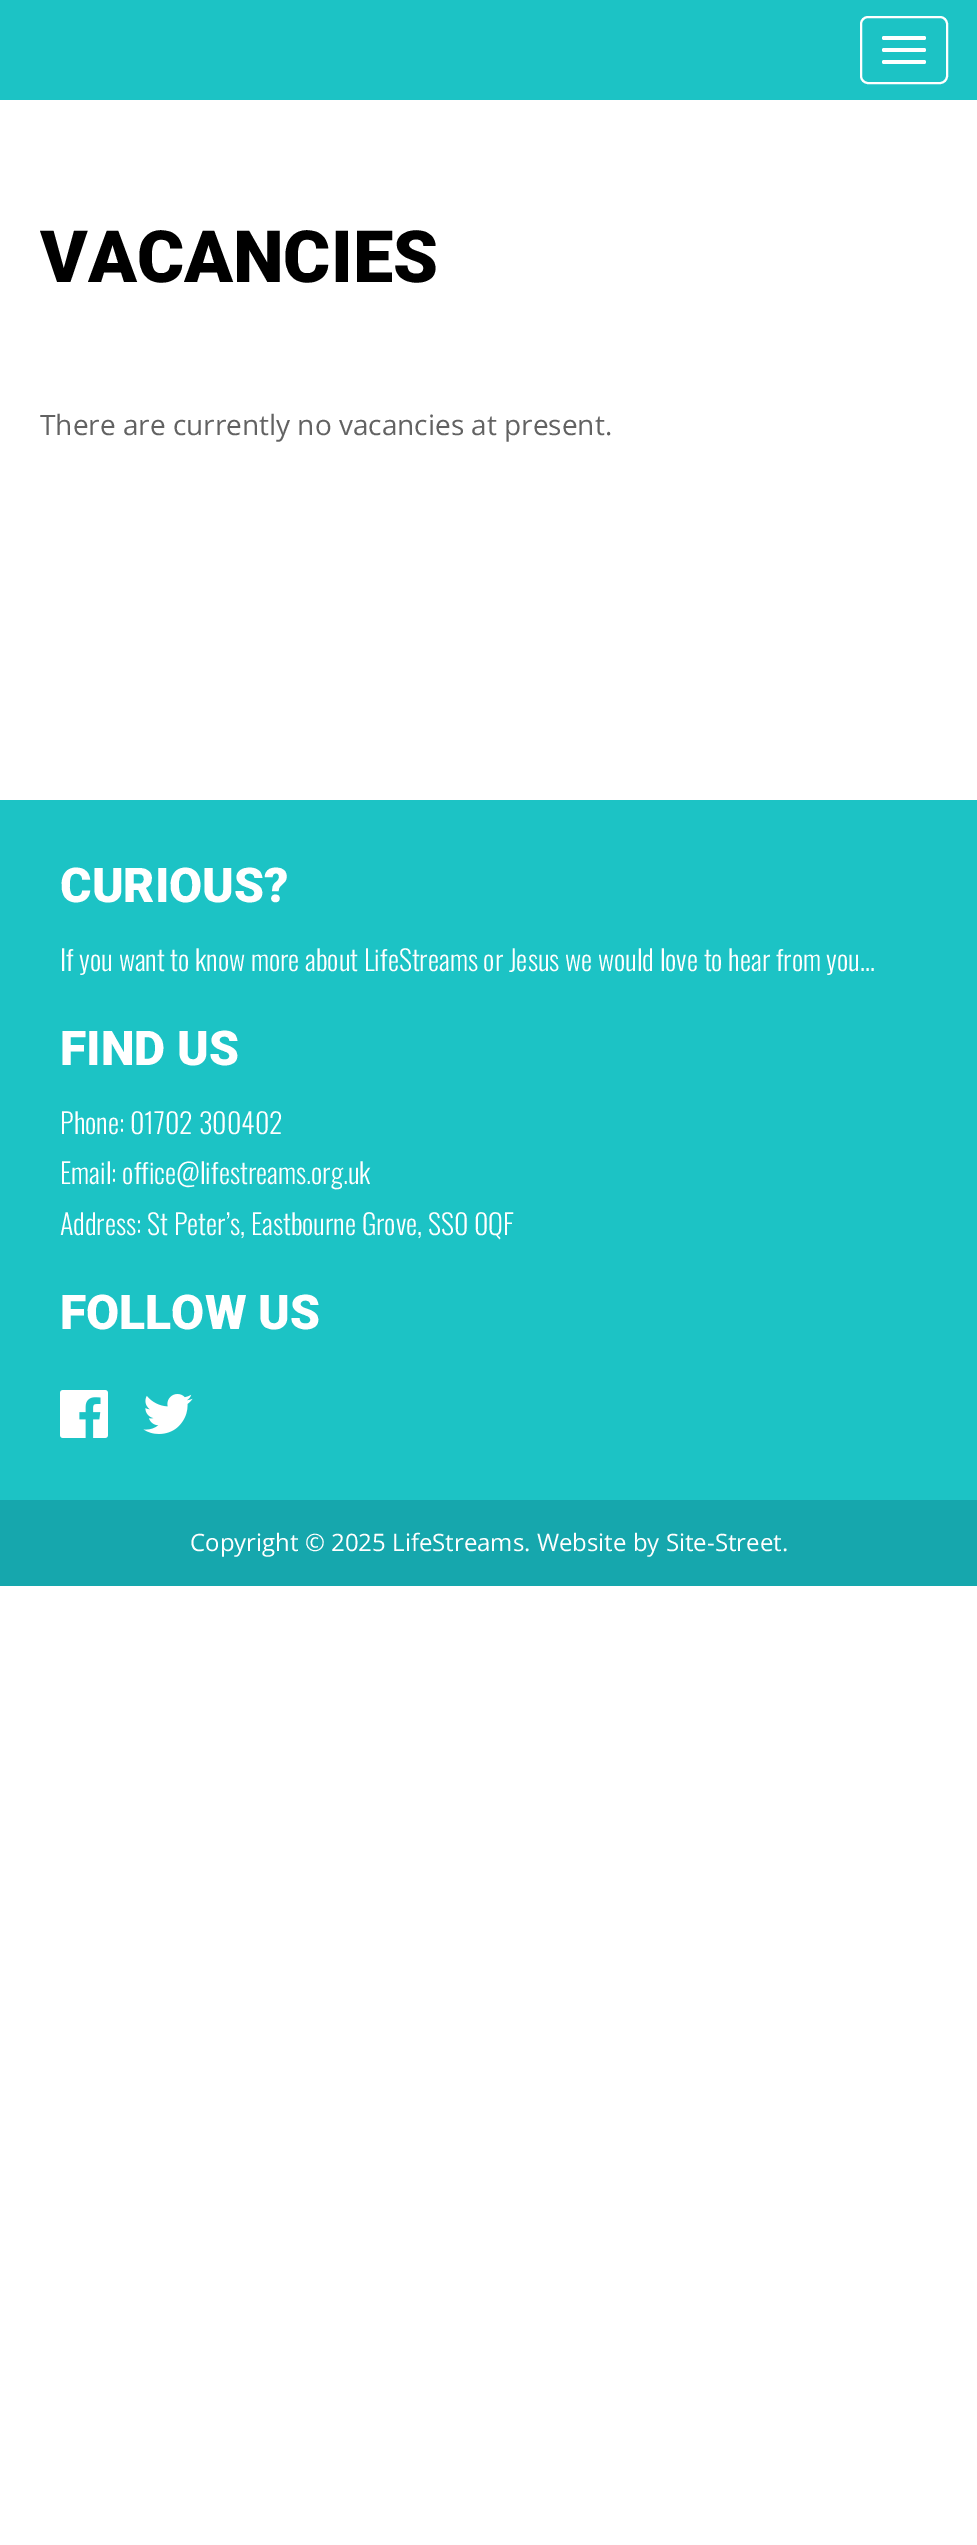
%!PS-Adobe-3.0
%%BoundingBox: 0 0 977 2545
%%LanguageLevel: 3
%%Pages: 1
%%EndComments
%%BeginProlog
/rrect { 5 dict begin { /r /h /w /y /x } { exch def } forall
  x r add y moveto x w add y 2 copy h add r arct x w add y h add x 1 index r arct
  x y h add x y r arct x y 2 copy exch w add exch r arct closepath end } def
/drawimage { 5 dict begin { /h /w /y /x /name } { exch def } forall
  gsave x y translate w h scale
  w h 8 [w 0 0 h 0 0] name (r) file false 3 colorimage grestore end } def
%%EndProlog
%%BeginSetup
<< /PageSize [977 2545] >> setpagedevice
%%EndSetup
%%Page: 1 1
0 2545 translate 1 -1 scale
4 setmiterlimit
1 setgray
0 0 977 2545 rectfill
0.11 0.765 0.773 setrgbcolor
0 0 977 100 rectfill
1 setgray
2 setlinewidth
861 17 86 66 7 rrect stroke
882 36 44 4 2 rrect fill
882 48 44 4 2 rrect fill
882 60 44 4 2 rrect fill
0.11 0.765 0.773 setrgbcolor
0 800 977 700 rectfill
(images/1.raw) 60 1390 48 48 drawimage
(images/2.raw) 143 1394 50 40 drawimage
0.086 0.655 0.678 setrgbcolor
0 1500 977 86 rectfill
/Roboto-Black [72 0 0 -72 0 0] selectfont
0 setgray
40 282 moveto (VACANCIES) show
/OpenSans-Regular [28 0 0 -28 0 0] selectfont
0.384 setgray
40 435 moveto (There are currently no vacancies at present.) show
/Roboto-Black [48 0 0 -48 0 0] selectfont
1 setgray
60 902 moveto (CURIOUS?) show
/Oswald-Light [28 0 0 -28 0 0] selectfont
60 971 moveto (If you want to know more about LifeStreams or Jesus we would love to hear from you…) show
/Roboto-Black [48 0 0 -48 0 0] selectfont
60 1065 moveto (FIND US) show
/Oswald-Light [28 0 0 -28 0 0] selectfont
60 1134 moveto (Phone: 01702 300402) show
60 1184 moveto (Email: office@lifestreams.org.uk) show
60 1235 moveto (Address: St Peter’s, Eastbourne Grove, SS0 0QF) show
/Roboto-Black [48 0 0 -48 0 0] selectfont
60 1329 moveto (FOLLOW US) show
/OpenSans-Regular [24 0 0 -24 0 0] selectfont
190 1551 moveto (Copyright © 2025 LifeStreams. Website by Site-Street.) show
showpage
%%EOF
